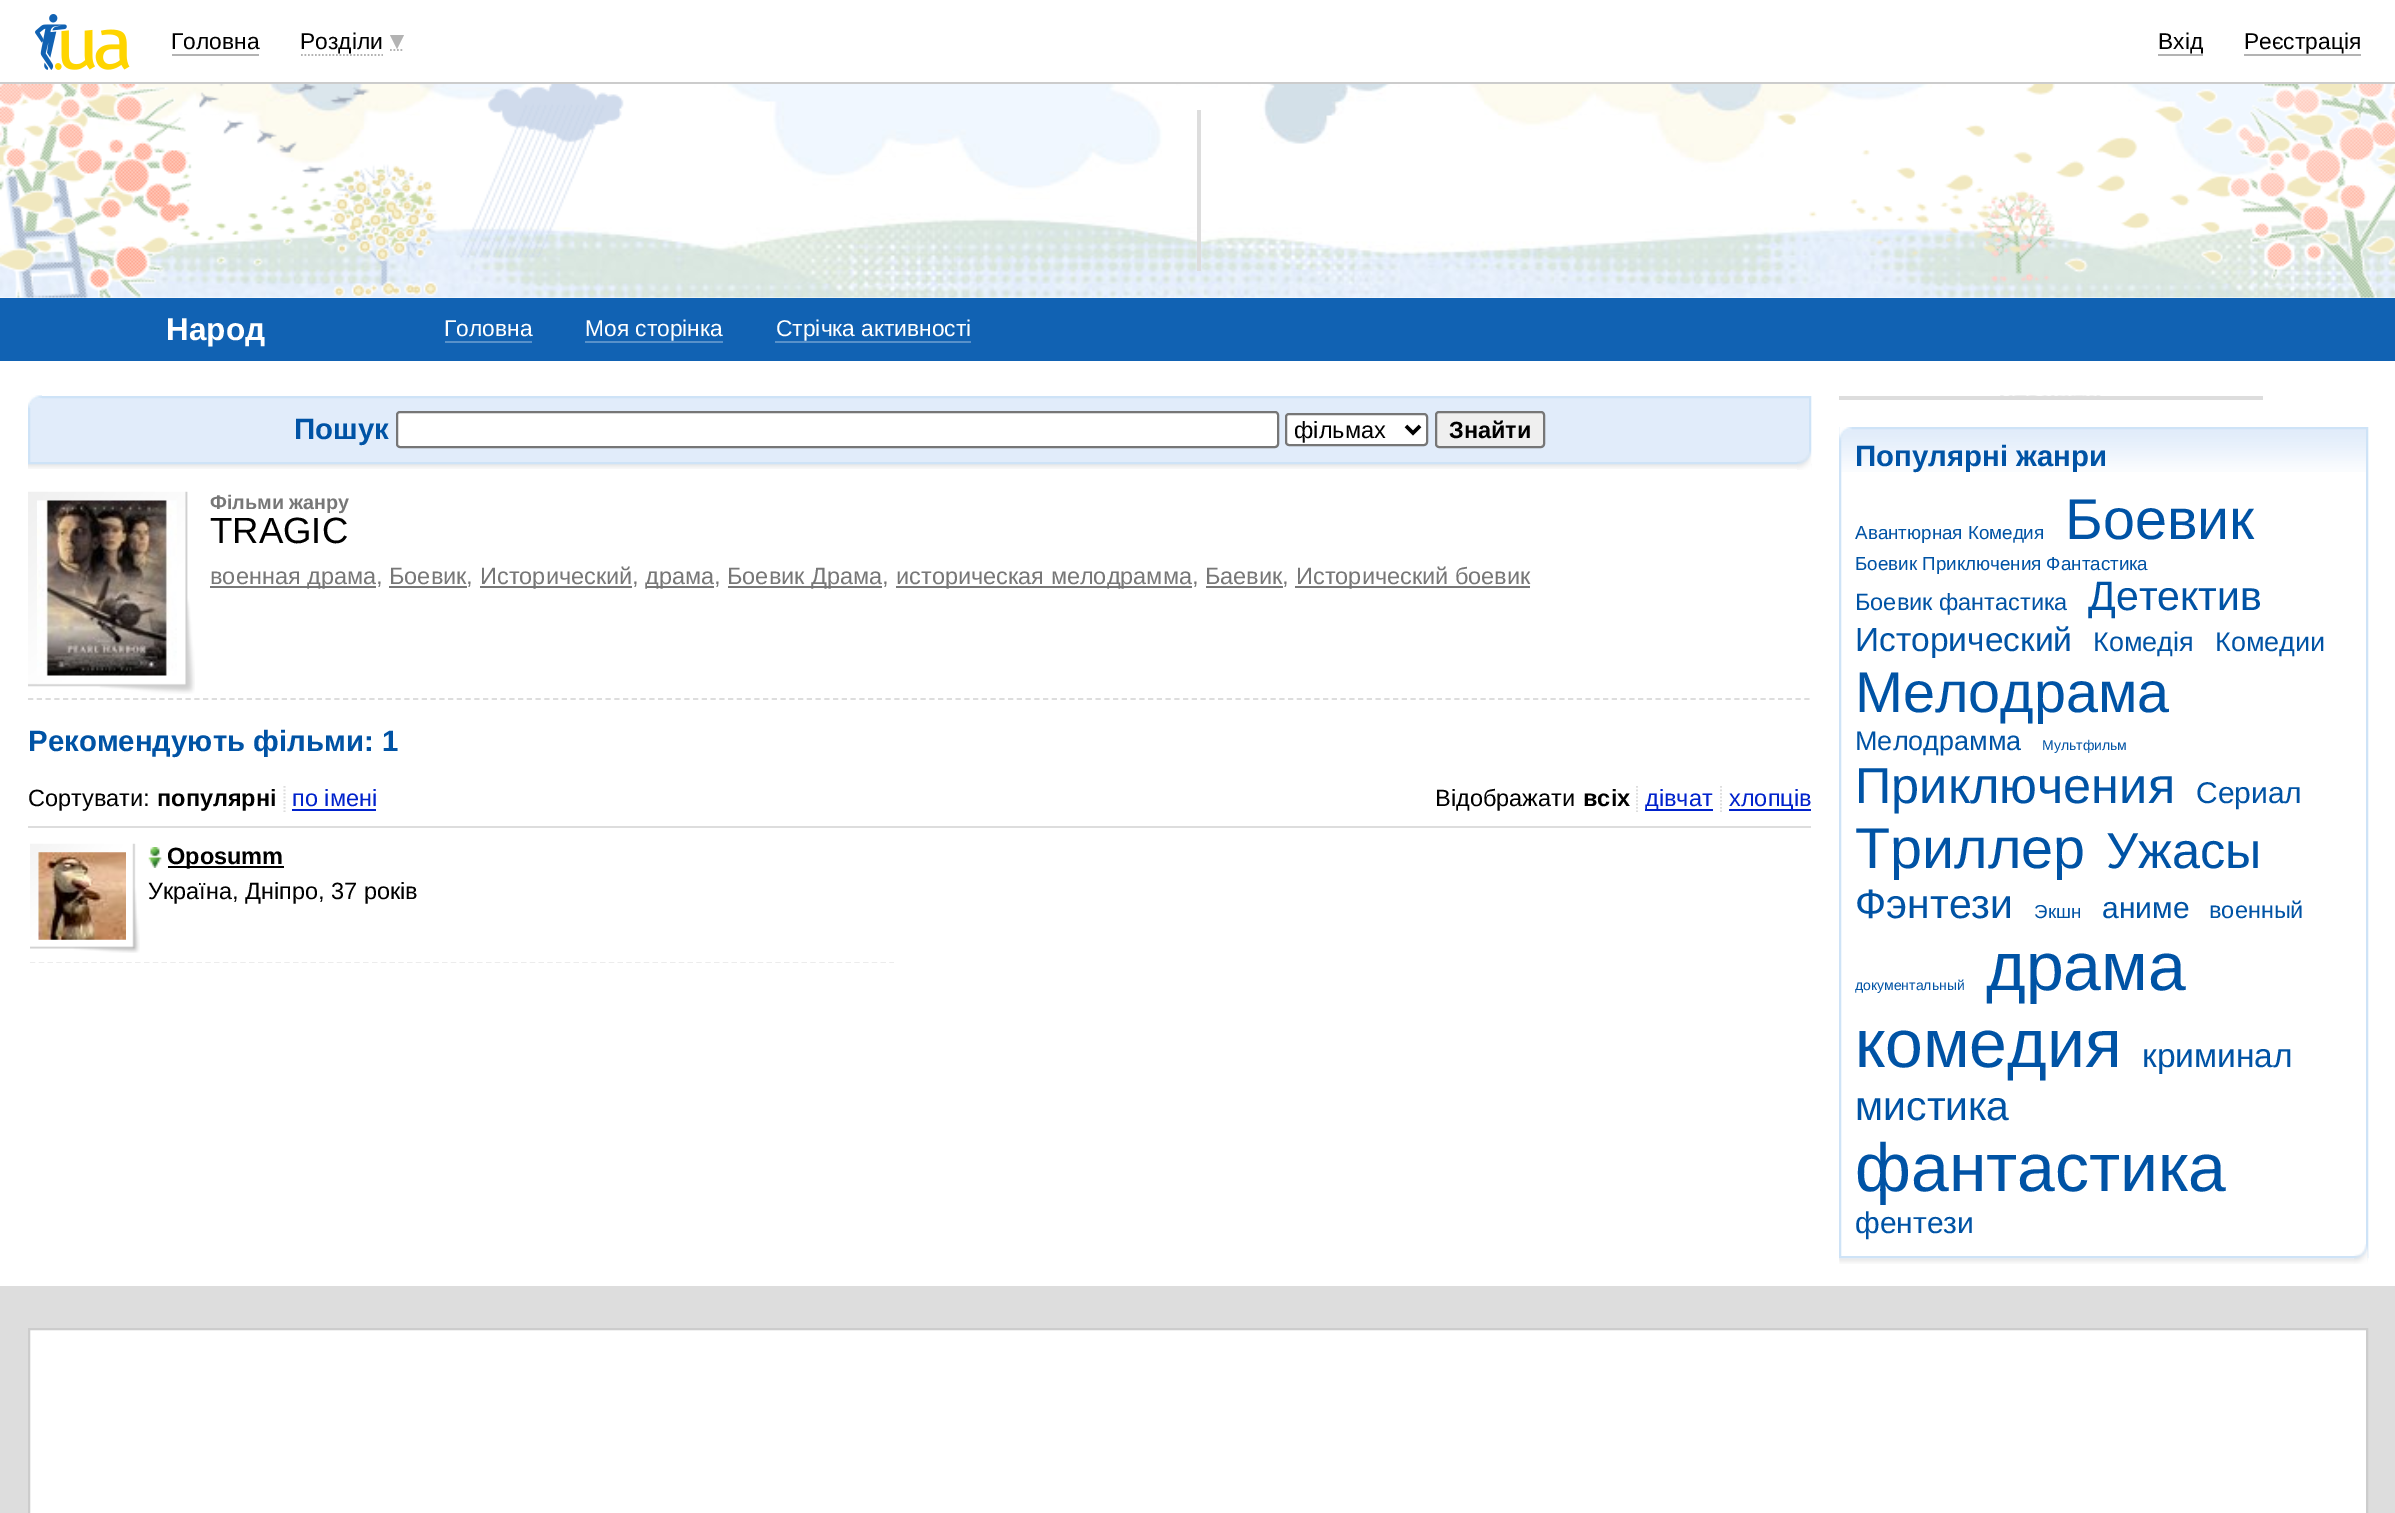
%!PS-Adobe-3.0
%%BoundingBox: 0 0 2395 1513
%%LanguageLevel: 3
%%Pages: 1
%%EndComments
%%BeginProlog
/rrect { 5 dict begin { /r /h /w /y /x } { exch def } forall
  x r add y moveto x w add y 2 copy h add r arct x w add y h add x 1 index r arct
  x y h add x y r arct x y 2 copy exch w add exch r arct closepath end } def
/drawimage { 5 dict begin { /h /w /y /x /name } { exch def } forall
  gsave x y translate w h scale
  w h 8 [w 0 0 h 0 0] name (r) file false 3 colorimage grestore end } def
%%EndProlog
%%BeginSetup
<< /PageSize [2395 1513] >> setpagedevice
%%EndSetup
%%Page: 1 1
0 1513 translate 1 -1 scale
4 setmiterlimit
1 setgray
0 0 2395 1513 rectfill
0.8 setgray
0 82 2395 2 rectfill
(images/1.raw) 35 14 95 56 drawimage
0.702 setgray
172 54 87 2 rectfill
1.8 setlinewidth
[1.75 1.75] 0 setdash
newpath 301 55 moveto 383 55 lineto stroke
newpath 390 50 moveto 404 50 lineto stroke
newpath 390 35 moveto 404 35 lineto 397 49 lineto closepath fill
2158 54 45 2 rectfill
2244 54 117 2 rectfill
(images/2.raw) 0 84 2395 214 drawimage
0.867 setgray
1197 110 4 161 rectfill
0.067 0.384 0.702 setrgbcolor
0 298 2395 63 rectfill
0.345 0.569 0.792 setrgbcolor
445 341 87 2 rectfill
585 341 138 2 rectfill
775 341 196 2 rectfill
(images/3.raw) 28 464 1770 5 drawimage
0.882 0.925 0.98 setrgbcolor
newpath 29 397 moveto 1810 397 lineto 1810 463 lineto 29 463 lineto closepath gsave fill grestore
0.808 0.89 0.969 setrgbcolor
2 setlinewidth
[] 0 setdash
stroke
(images/4.raw) 28 395 14 13 drawimage
1 setgray
397 412 881 35 3 rrect gsave fill grestore
0.463 setgray
stroke
1 setgray
1286 414 141 31 3 rrect gsave fill grestore
0.463 setgray
stroke
0 setgray
3.5 setlinewidth
newpath 1406 426 moveto 1413 433 lineto 1420 426 lineto stroke
0.937 setgray
1436 412 108 35 3 rrect gsave fill grestore
0.463 setgray
2 setlinewidth
stroke
(images/5.raw) 1797 450 15 20 drawimage
0.867 setgray
1.8 setlinewidth
[5.25 3.5] 0 setdash
newpath 28 699 moveto 1811 699 lineto stroke
(images/6.raw) 28 491 167 203 drawimage
(images/7.raw) 37 500 140 176 drawimage
0.467 setgray
210 586 166 2 rectfill
480 586 152 2 rectfill
646 586 68 2 rectfill
728 586 154 2 rectfill
896 586 296 2 rectfill
1295 586 235 2 rectfill
389 586 78 2 rectfill
1206 586 77 2 rectfill
0.867 setgray
[1.75 1.75] 0 setdash
newpath 284.5 786 moveto 284.5 812 lineto stroke
0 0.133 0.8 setrgbcolor
292 809 84 2 rectfill
0.867 setgray
newpath 1637 786 moveto 1637 812 lineto stroke
newpath 1721 786 moveto 1721 812 lineto stroke
0 0.133 0.8 setrgbcolor
1645 809 68 2 rectfill
1729 809 82 2 rectfill
0.867 setgray
28 826 1783 2 rectfill
gsave
0 835 1811 128 rectclip
[5.25 3.52] 0 setdash
newpath 30 963.5 moveto 894 963.5 lineto stroke
grestore
(images/8.raw) 30 843 110 110 drawimage
(images/9.raw) 38 852 88 88 drawimage
(images/10.raw) 148 847 14 21 drawimage
0 setgray
168 866 116 2 rectfill
(images/11.raw) 2000 395 101 1 drawimage
0.867 setgray
1839 396 424 4 rectfill
(images/12.raw) 1839 1258 529 6 drawimage
(images/14.raw) 1841 429 525 43 drawimage
0.808 0.89 0.969 setrgbcolor
2 setlinewidth
[] 0 setdash
1840 428 527 829 rectstroke
(images/13.raw) 1839 427 13 14 drawimage
(images/15.raw) 2353 1244 15 20 drawimage
0.867 setgray
0 1286 2395 227 rectfill
1 setgray
newpath 29 1329 moveto 2367 1329 lineto 2367 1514 lineto 29 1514 lineto closepath gsave fill grestore
0.8 setgray
stroke
/LiberationSans-Regular [22.75 0 0 -22.75 0 0] selectfont
0 setgray
171 49 moveto (Головна) show
300 49 moveto (Розділи) show
2158 49 moveto (Вхід) show
2244 49 moveto (Реєстрація) show
/LiberationSans-Bold [31.5 0 0 -31.5 0 0] selectfont
1 setgray
166 340 moveto (Народ) show
/LiberationSans-Regular [22.75 0 0 -22.75 0 0] selectfont
444 336 moveto (Головна) show
585 336 moveto (Моя сторінка) show
776 336 moveto (Стрічка активності) show
/LiberationSans-Bold [29.4 0 0 -29.4 0 0] selectfont
0 0.325 0.647 setrgbcolor
294 439 moveto (Пошук) show
/LiberationSans-Regular [23.5 0 0 -23.5 0 0] selectfont
0 setgray
1294 438 moveto (фільмах) show
/LiberationSans-Bold [23.5 0 0 -23.5 0 0] selectfont
1449 438 moveto (Знайти) show
/LiberationSans-Bold [19.75 0 0 -19.75 0 0] selectfont
0.467 setgray
210 509 moveto (Фільми жанру) show
/LiberationSans-Regular [36.5 0 0 -36.5 0 0] selectfont
0 setgray
210 543 moveto (TRAGIC) show
/LiberationSans-Regular [23.5 0 0 -23.5 0 0] selectfont
0.467 setgray
210 584 moveto (военная драма, Боевик,) show
480 584 moveto (Исторический,) show
645 584 moveto (драма,) show
727 584 moveto (Боевик Драма,) show
896 584 moveto (историческая мелодрамма, Баевик,) show
1296 584 moveto (Исторический боевик) show
/LiberationSans-Bold [29.4 0 0 -29.4 0 0] selectfont
0 0.325 0.647 setrgbcolor
28 751 moveto (Рекомендують фільми: 1) show
/LiberationSans-Regular [23.5 0 0 -23.5 0 0] selectfont
0 setgray
28 806 moveto (Сортувати:) show
/LiberationSans-Bold [23.5 0 0 -23.5 0 0] selectfont
157 806 moveto (популярні) show
/LiberationSans-Regular [23.5 0 0 -23.5 0 0] selectfont
0 0.133 0.8 setrgbcolor
292 806 moveto (по імені) show
0 setgray
1435 806 moveto (Відображати) show
/LiberationSans-Bold [23.5 0 0 -23.5 0 0] selectfont
1583 806 moveto (всіх) show
/LiberationSans-Regular [23.5 0 0 -23.5 0 0] selectfont
0 0.133 0.8 setrgbcolor
1645 806 moveto (дівчат) show
1729 806 moveto (хлопців) show
/LiberationSans-Bold [23.5 0 0 -23.5 0 0] selectfont
0 setgray
167 864 moveto (Oposumm) show
/LiberationSans-Regular [23.5 0 0 -23.5 0 0] selectfont
148 899 moveto (Україна, Дніпро, 37 років) show
/LiberationSans-Bold [29.4 0 0 -29.4 0 0] selectfont
0 0.325 0.647 setrgbcolor
1855 466 moveto (Популярні жанри) show
/LiberationSans-Regular [18.8 0 0 -18.8 0 0] selectfont
1855 539 moveto (Авантюрная Комедия) show
/LiberationSans-Regular [57.5 0 0 -57.5 0 0] selectfont
2065 539 moveto (Боевик) show
/LiberationSans-Regular [18.8 0 0 -18.8 0 0] selectfont
1855 570 moveto (Боевик Приключения Фантастика) show
/LiberationSans-Regular [23.5 0 0 -23.5 0 0] selectfont
1855 610 moveto (Боевик фантастика) show
/LiberationSans-Regular [41 0 0 -41 0 0] selectfont
2088 610 moveto (Детектив) show
/LiberationSans-Regular [33.5 0 0 -33.5 0 0] selectfont
1855 651 moveto (Исторический) show
/LiberationSans-Regular [27 0 0 -27 0 0] selectfont
2093 651 moveto (Комедія) show
2215 651 moveto (Комедии) show
/LiberationSans-Regular [57.5 0 0 -57.5 0 0] selectfont
1855 712 moveto (Мелодрама) show
/LiberationSans-Regular [27 0 0 -27 0 0] selectfont
1855 750 moveto (Мелодрамма) show
/LiberationSans-Regular [14 0 0 -14 0 0] selectfont
2042 750 moveto (Мультфильм) show
/LiberationSans-Regular [50.5 0 0 -50.5 0 0] selectfont
1855 803 moveto (Приключения) show
/LiberationSans-Regular [30 0 0 -30 0 0] selectfont
2196 803 moveto (Сериал) show
/LiberationSans-Regular [57.5 0 0 -57.5 0 0] selectfont
1855 868 moveto (Триллер) show
/LiberationSans-Regular [50.5 0 0 -50.5 0 0] selectfont
2106 868 moveto (Ужасы) show
/LiberationSans-Regular [41 0 0 -41 0 0] selectfont
1855 918 moveto (Фэнтези) show
/LiberationSans-Regular [18.8 0 0 -18.8 0 0] selectfont
2034 918 moveto (Экшн) show
/LiberationSans-Regular [30 0 0 -30 0 0] selectfont
2102 918 moveto (аниме) show
/LiberationSans-Regular [23.5 0 0 -23.5 0 0] selectfont
2209 918 moveto (военный) show
/LiberationSans-Regular [14 0 0 -14 0 0] selectfont
1855 990 moveto (документальный) show
/LiberationSans-Regular [68 0 0 -68 0 0] selectfont
1986 990 moveto (драма) show
1855 1067 moveto (комедия) show
/LiberationSans-Regular [33.5 0 0 -33.5 0 0] selectfont
2142 1067 moveto (криминал) show
/LiberationSans-Regular [41 0 0 -41 0 0] selectfont
1855 1120 moveto (мистика) show
/LiberationSans-Regular [68 0 0 -68 0 0] selectfont
1855 1191 moveto (фантастика) show
/LiberationSans-Regular [30 0 0 -30 0 0] selectfont
1855 1233 moveto (фентези) show
showpage
%%EOF
